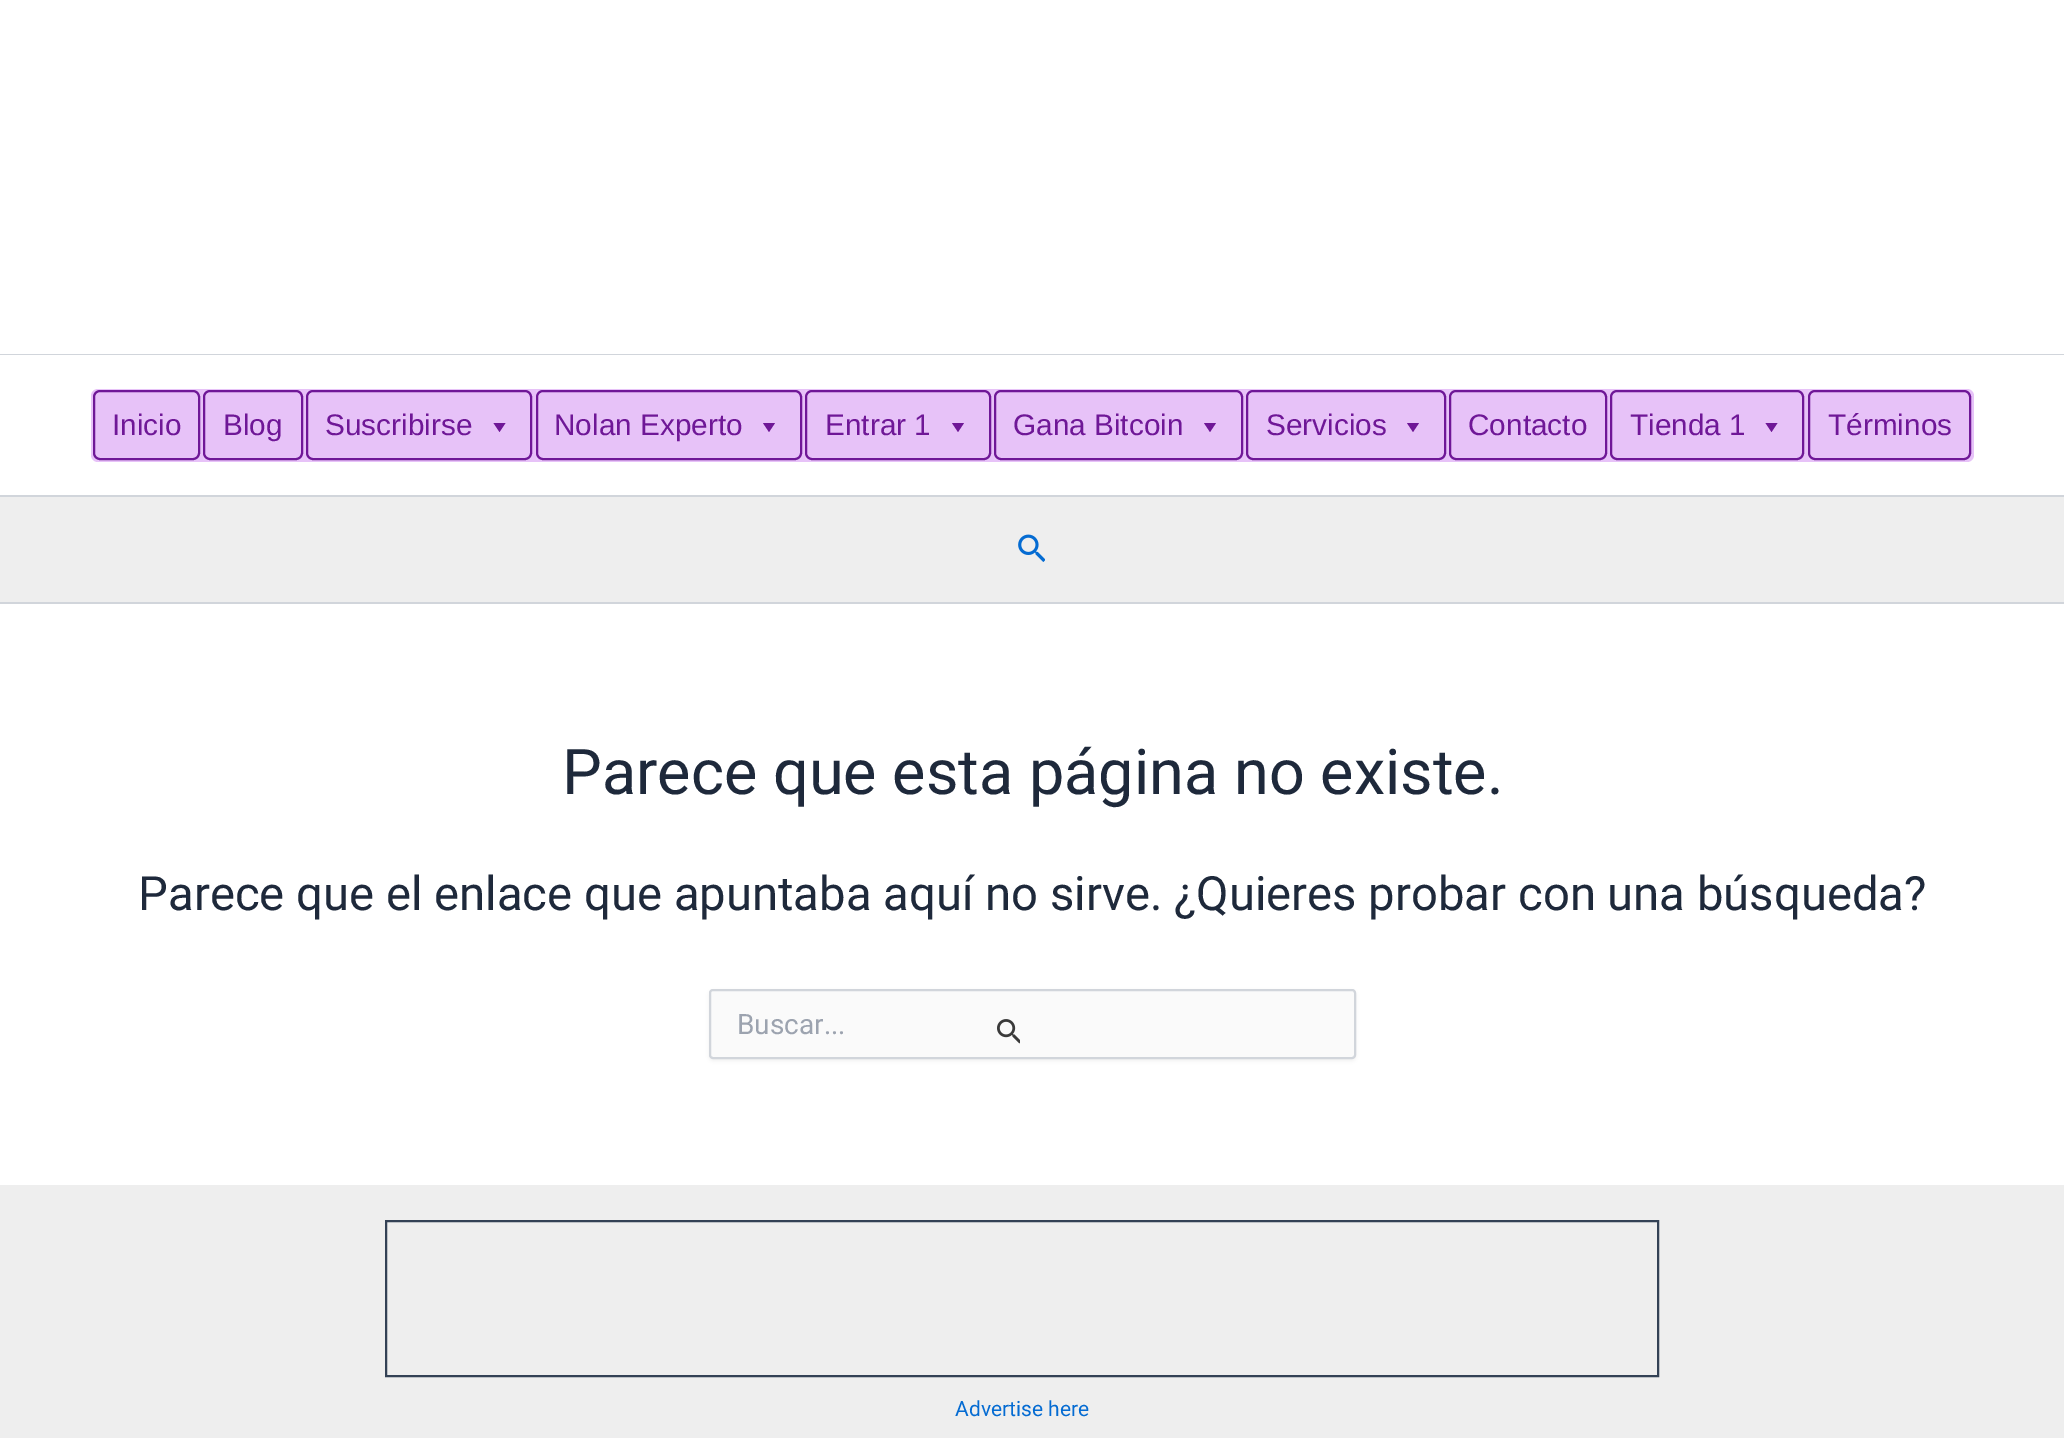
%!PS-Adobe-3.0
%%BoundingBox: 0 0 2064 1438
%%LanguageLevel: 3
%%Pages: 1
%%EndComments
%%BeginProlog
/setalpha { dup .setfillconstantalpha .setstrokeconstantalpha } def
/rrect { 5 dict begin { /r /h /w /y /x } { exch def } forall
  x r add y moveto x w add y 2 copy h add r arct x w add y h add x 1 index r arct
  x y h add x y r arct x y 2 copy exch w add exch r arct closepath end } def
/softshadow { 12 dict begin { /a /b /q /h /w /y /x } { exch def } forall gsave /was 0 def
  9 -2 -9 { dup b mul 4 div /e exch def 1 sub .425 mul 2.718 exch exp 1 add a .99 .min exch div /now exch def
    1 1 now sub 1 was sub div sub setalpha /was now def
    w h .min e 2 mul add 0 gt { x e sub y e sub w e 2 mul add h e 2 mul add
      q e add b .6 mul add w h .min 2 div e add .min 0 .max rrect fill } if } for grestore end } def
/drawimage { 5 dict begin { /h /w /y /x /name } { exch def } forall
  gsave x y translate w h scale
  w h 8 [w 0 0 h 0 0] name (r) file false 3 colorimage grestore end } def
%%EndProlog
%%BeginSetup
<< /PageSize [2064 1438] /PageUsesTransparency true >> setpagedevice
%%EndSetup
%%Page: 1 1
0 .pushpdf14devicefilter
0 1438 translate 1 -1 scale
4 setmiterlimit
1 setgray
0 0 2064 1438 rectfill
0.82 0.835 0.859 setrgbcolor
0 354 2064 1 rectfill
0 495 2064 2 rectfill
0.906 0.761 0.973 setrgbcolor
91 389 1883 73 7 rrect fill
0.435 0.09 0.592 setrgbcolor
2 setlinewidth
94 391 105 68 6 rrect stroke
0.914 0.784 0.976 setrgbcolor
203 390 2 70 rectfill
0.906 0.761 0.973 setrgbcolor
204 391 98 68 6 rrect gsave fill grestore
0.435 0.09 0.592 setrgbcolor
stroke
0.914 0.784 0.976 setrgbcolor
307 390 1 70 rectfill
0.906 0.761 0.973 setrgbcolor
307 391 224 68 6 rrect gsave fill grestore
0.435 0.09 0.592 setrgbcolor
stroke
newpath 505.5 423 moveto 499.5 432 lineto 493.5 423 lineto closepath fill
0.914 0.784 0.976 setrgbcolor
536 390 2 70 rectfill
0.906 0.761 0.973 setrgbcolor
537 391 264 68 6 rrect gsave fill grestore
0.435 0.09 0.592 setrgbcolor
stroke
newpath 775 423 moveto 769 432 lineto 763 423 lineto closepath fill
0.914 0.784 0.976 setrgbcolor
805 390 2 70 rectfill
0.906 0.761 0.973 setrgbcolor
806 391 184 68 6 rrect gsave fill grestore
0.435 0.09 0.592 setrgbcolor
stroke
newpath 964 423 moveto 958 432 lineto 952 423 lineto closepath fill
0.914 0.784 0.976 setrgbcolor
994 390 2 70 rectfill
0.906 0.761 0.973 setrgbcolor
995 391 247 68 6 rrect gsave fill grestore
0.435 0.09 0.592 setrgbcolor
stroke
newpath 1216 423 moveto 1210 432 lineto 1204 423 lineto closepath fill
0.914 0.784 0.976 setrgbcolor
1246 390 2 70 rectfill
0.906 0.761 0.973 setrgbcolor
1247 391 198 68 6 rrect gsave fill grestore
0.435 0.09 0.592 setrgbcolor
stroke
newpath 1419 423 moveto 1413 432 lineto 1407 423 lineto closepath fill
0.914 0.784 0.976 setrgbcolor
1449 390 2 70 rectfill
0.906 0.761 0.973 setrgbcolor
1450 391 156 68 6 rrect gsave fill grestore
0.435 0.09 0.592 setrgbcolor
stroke
0.914 0.784 0.976 setrgbcolor
1610 390 2 70 rectfill
0.906 0.761 0.973 setrgbcolor
1611 391 192 68 6 rrect gsave fill grestore
0.435 0.09 0.592 setrgbcolor
stroke
newpath 1777.5 423 moveto 1771.5 432 lineto 1765.5 423 lineto closepath fill
0.914 0.784 0.976 setrgbcolor
1808 390 2 70 rectfill
0.906 0.761 0.973 setrgbcolor
1809 391 161 68 6 rrect gsave fill grestore
0.435 0.09 0.592 setrgbcolor
stroke
0.933 setgray
0 497 2064 105 rectfill
0.82 0.835 0.859 setrgbcolor
0 602 2064 2 rectfill
(images/1.raw) 1018 534 27 28 drawimage
0 setgray
709 991 647 70 4 2 0.05 softshadow
0.98 setgray
710 990 645 68 3 rrect gsave fill grestore
0.82 0.835 0.859 setrgbcolor
stroke
(images/2.raw) 997 1019 23 25 drawimage
0.933 setgray
0 1185 2064 253 rectfill
0.2 0.255 0.333 setrgbcolor
386 1221 1272 155 rectstroke
/LiberationSans-Regular [29.75 0 0 -29.75 0 0] selectfont
0.435 0.09 0.592 setrgbcolor
112 435 moveto (Inicio) show
223 435 moveto (Blog) show
325 435 moveto (Suscribirse) show
554 435 moveto (Nolan Experto) show
825 435 moveto (Entrar 1) show
1013 435 moveto (Gana Bitcoin) show
1266 435 moveto (Servicios) show
1468 435 moveto (Contacto) show
1630 435 moveto (Tienda 1) show
1828 435 moveto (Términos) show
/Roboto-Regular [63 0 0 -63 0 0] selectfont
0.118 0.161 0.231 setrgbcolor
562 794 moveto (Parece que esta página no existe.) show
/Roboto-Regular [47.25 0 0 -47.25 0 0] selectfont
138 910 moveto (Parece que el enlace que apuntaba aquí no sirve. ¿Quieres probar con una búsqueda?) show
/Roboto-Regular [28 0 0 -28 0 0] selectfont
0.612 0.639 0.686 setrgbcolor
737 1034 moveto (Buscar...) show
/Roboto-Regular [21 0 0 -21 0 0] selectfont
0.016 0.42 0.824 setrgbcolor
955 1416 moveto (Advertise here) show
.poppdf14devicefilter showpage
%%EOF
